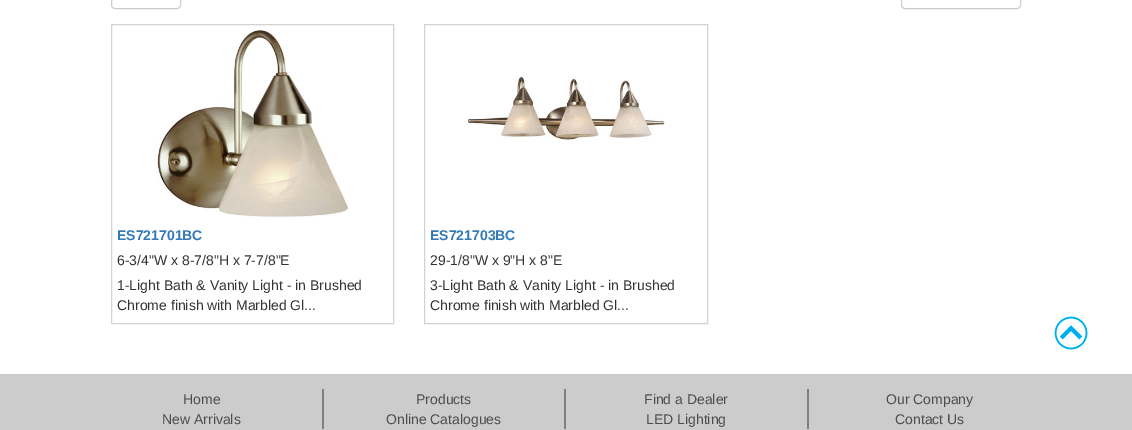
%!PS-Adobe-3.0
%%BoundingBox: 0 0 1132 430
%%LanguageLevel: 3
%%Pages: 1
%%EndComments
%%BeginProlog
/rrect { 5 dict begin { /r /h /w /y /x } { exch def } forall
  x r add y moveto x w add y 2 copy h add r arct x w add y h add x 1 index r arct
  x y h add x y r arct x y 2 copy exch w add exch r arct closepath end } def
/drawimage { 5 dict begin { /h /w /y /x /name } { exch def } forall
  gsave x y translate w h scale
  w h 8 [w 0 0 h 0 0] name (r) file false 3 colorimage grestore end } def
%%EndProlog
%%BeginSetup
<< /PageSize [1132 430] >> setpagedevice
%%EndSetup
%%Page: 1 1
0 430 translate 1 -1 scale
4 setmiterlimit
1 setgray
0 0 1132 430 rectfill
0.8 setgray
111.5 -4.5 69 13 3.5 rrect stroke
901.5 -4.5 119 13 3.5 rrect stroke
0.827 setgray
111.5 24.5 282 299 rectstroke
(images/1.raw) 157 30 192 187 drawimage
424.5 24.5 283 299 rectstroke
(images/2.raw) 466 75 200 65 drawimage
(images/3.raw) 1054 316 34 34 drawimage
0.8 setgray
0 374 1132 56 rectfill
0.502 setgray
322 389 2 40 rectfill
564 389 2 40 rectfill
807 389 2 40 rectfill
/LiberationSans-Bold [14 0 0 -14 0 0] selectfont
0.2 0.478 0.718 setrgbcolor
117 240 moveto (ES721701BC) show
/LiberationSans-Regular [14 0 0 -14 0 0] selectfont
0.2 setgray
117 265 moveto (6-3/4"W x 8-7/8"H x 7-7/8"E) show
117 290 moveto (1-Light Bath & Vanity Light - in Brushed) show
117 310 moveto (Chrome finish with Marbled Gl...) show
/LiberationSans-Bold [14 0 0 -14 0 0] selectfont
0.2 0.478 0.718 setrgbcolor
430 240 moveto (ES721703BC) show
/LiberationSans-Regular [14 0 0 -14 0 0] selectfont
0.2 setgray
430 265 moveto (29-1/8"W x 9"H x 8"E) show
430 290 moveto (3-Light Bath & Vanity Light - in Brushed) show
430 310 moveto (Chrome finish with Marbled Gl...) show
0.302 setgray
183 404 moveto (Home) show
162 424 moveto (New Arrivals) show
416 404 moveto (Products) show
386 424 moveto (Online Catalogues) show
644 404 moveto (Find a Dealer) show
646 424 moveto (LED Lighting) show
886 404 moveto (Our Company) show
895 424 moveto (Contact Us) show
showpage
%%EOF
